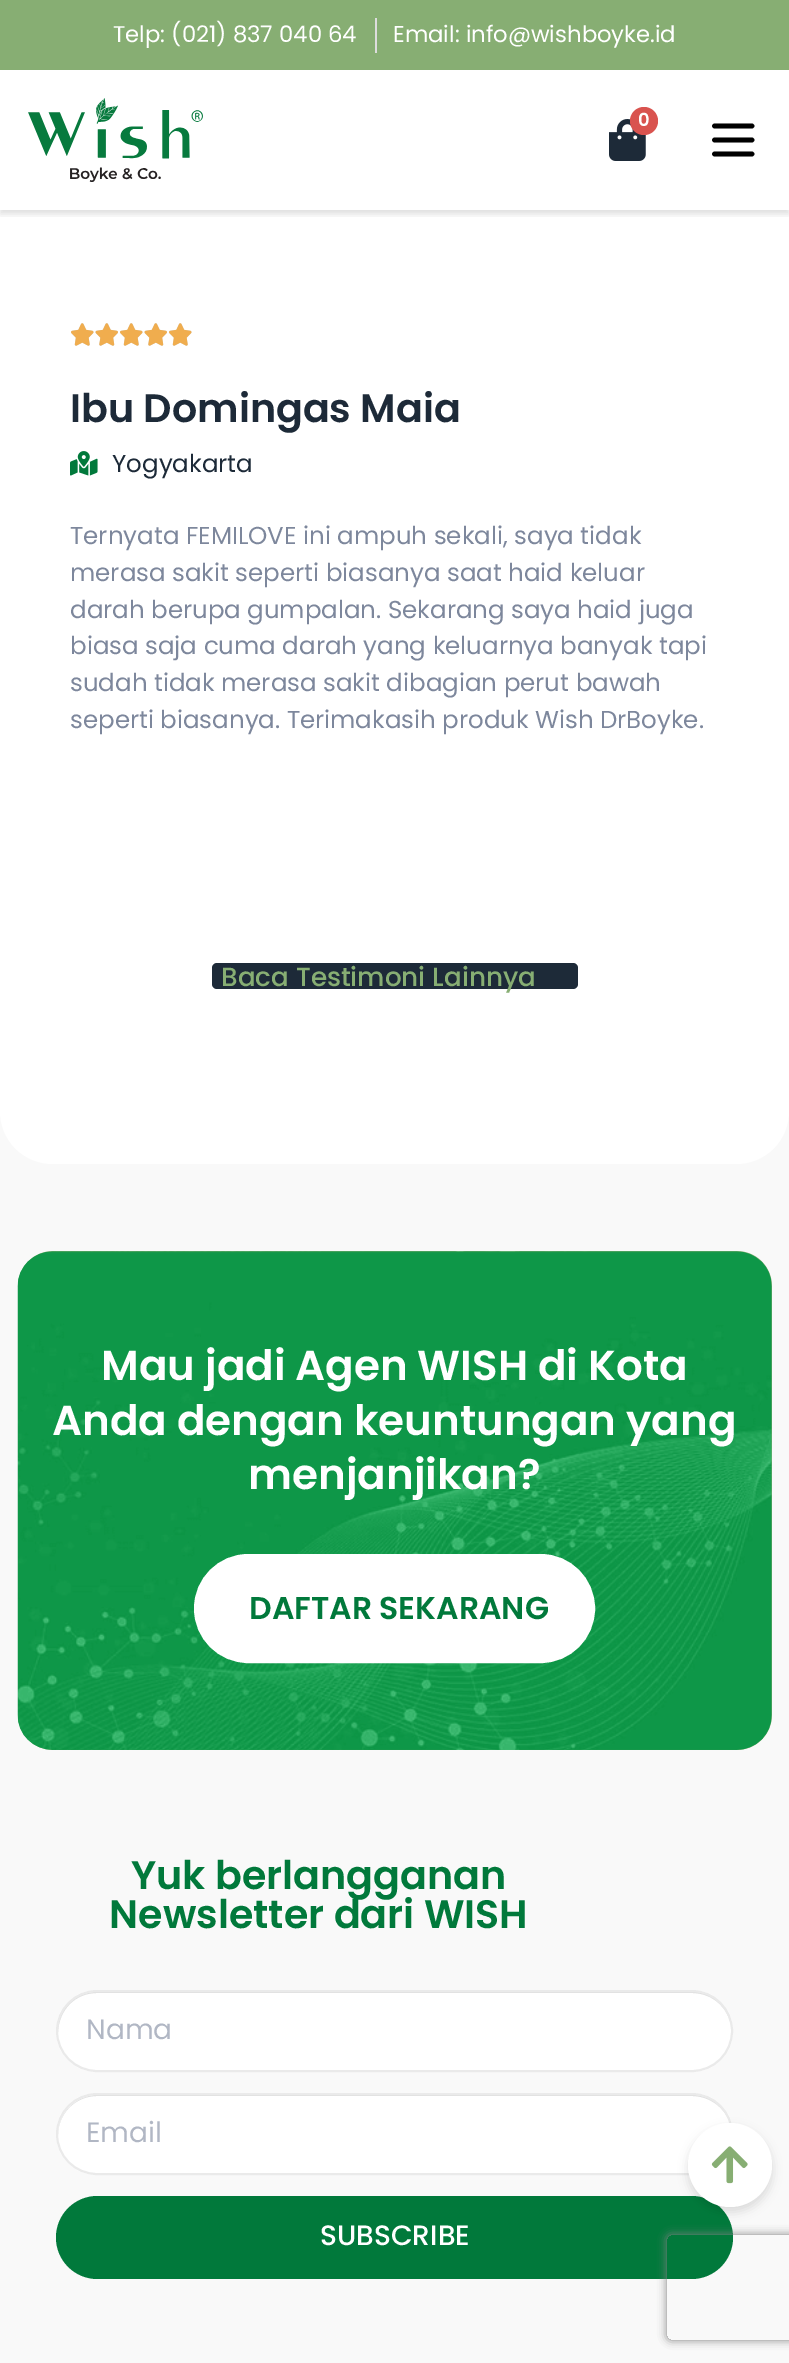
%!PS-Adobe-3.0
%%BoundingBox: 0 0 789 2363
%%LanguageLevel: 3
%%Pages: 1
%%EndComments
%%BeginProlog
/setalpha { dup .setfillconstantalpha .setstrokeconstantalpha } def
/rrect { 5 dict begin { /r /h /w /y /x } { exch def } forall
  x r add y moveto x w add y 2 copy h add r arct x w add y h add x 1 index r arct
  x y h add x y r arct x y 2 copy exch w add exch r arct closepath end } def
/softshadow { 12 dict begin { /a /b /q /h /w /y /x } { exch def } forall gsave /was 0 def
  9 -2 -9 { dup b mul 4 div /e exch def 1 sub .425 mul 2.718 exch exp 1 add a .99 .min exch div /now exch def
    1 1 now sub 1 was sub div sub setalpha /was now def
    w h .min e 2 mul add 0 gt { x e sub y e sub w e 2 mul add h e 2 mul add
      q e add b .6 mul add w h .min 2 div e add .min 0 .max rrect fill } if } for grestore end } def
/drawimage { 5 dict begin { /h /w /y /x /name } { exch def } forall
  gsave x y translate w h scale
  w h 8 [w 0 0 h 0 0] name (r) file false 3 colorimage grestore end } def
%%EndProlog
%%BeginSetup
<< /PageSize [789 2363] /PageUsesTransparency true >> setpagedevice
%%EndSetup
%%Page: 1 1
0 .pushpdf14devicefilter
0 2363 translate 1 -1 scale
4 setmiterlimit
1 setgray
0 0 789 2363 rectfill
0.529 0.682 0.451 setrgbcolor
0 0 789 70 rectfill
0.867 setgray
375 18 2 35 rectfill
gsave
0 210 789 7 rectclip
0 setgray
0 74 789 140 0 3.5 0.12 softshadow
grestore
(images/1.raw) 28 98 175 84 drawimage
(images/2.raw) 609 119 37 42 drawimage
0.851 0.325 0.31 setrgbcolor
newpath 644 121 14 0 360 arc closepath fill
0 setgray
4.7 setlinewidth
1 setlinecap
1 setlinejoin
newpath 714.5 126 moveto 752 126 lineto 714.5 140 moveto 752 140 lineto 714.5 154 moveto 752 154 lineto stroke
(images/3.raw) 71 323 23 23 drawimage
(images/4.raw) 71 323 23 23 drawimage
(images/5.raw) 95 323 23 23 drawimage
(images/6.raw) 95 323 23 23 drawimage
(images/3.raw) 120 323 23 23 drawimage
(images/4.raw) 120 323 23 23 drawimage
(images/5.raw) 144 323 23 23 drawimage
(images/6.raw) 144 323 23 23 drawimage
(images/3.raw) 169 323 23 23 drawimage
(images/4.raw) 169 323 23 23 drawimage
(images/7.raw) 70 451 28 25 drawimage
0.114 0.165 0.22 setrgbcolor
212 963 366 26 5 rrect fill
0.976 setgray
0 1111 789 1252 rectfill
1 setgray
newpath 0 1111 moveto 789 1111 lineto 789 1140.5 765.5 1164 736 1164 curveto 53 1164 lineto 23.5 1164 0 1140.5 0 1111 curveto closepath fill
0.529 0.682 0.451 setrgbcolor
18 1251 754 499 35 rrect fill
(images/8.raw) 17 1251 755 499 drawimage
1 setgray
196 1556 397 105 52.5 rrect gsave fill grestore
4 setlinewidth
0 setlinecap
0 setlinejoin
stroke
56 1990 677 82 41 rrect fill
0.875 setgray
newpath 97 1993 moveto 692 1993 lineto 714 1993 731 2010 732 2032 curveto 733 2010 715 1992 693 1992 curveto 97 1992 lineto 75 1992 57 2010 58 2032 curveto 59 2010 75 1993 97 1993 curveto closepath fill
0.918 setgray
2 setlinewidth
57 1991 675 80 40 rrect stroke
1 setgray
56 2093 677 82 41 rrect fill
0.875 setgray
newpath 97 2096 moveto 692 2096 lineto 714 2096 732 2114 732 2135 curveto 732 2113 714 2095 692 2095 curveto 98 2095 lineto 76 2095 58 2113 58 2135 curveto 58 2114 75 2096 97 2096 curveto closepath fill
0.918 setgray
57 2094 675 80 40 rrect stroke
0.004 0.475 0.231 setrgbcolor
56 2196 677 83 41.5 rrect fill
gsave
newpath 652 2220 moveto 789 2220 lineto 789 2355 lineto 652 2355 lineto closepath 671 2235 moveto 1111 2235 lineto 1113 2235 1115 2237 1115 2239 curveto 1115 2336 lineto 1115 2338 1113 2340 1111 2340 curveto 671 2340 lineto 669 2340 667 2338 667 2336 curveto 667 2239 lineto 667 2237 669 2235 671 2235 curveto closepath eoclip newpath
0.502 setgray
667 2235 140 105 4 4.5 1 softshadow
grestore
0 setgray
688 2128 84 84 42 5 0.12 softshadow
1 setgray
newpath 730 2165 42 0 360 arc closepath fill
(images/9.raw) 711 2146 37 38 drawimage
/Poppins-Regular [22.75 0 0 -22.75 0 0] selectfont
113 42 moveto (Telp: \(021\) 837 040 64) show
393 42 moveto (Email: info@wishboyke.id) show
/Poppins-SemiBold [18 0 0 -18 0 0] selectfont
638 126 moveto (0) show
/Poppins-SemiBold [39.6 0 0 -39.6 0 0] selectfont
0.114 0.165 0.22 setrgbcolor
70 422 moveto (Ibu Domingas Maia) show
/Poppins-Regular [24.5 0 0 -24.5 0 0] selectfont
112 472 moveto (Yogyakarta) show
0.49 0.529 0.612 setrgbcolor
70 544 moveto (Ternyata FEMILOVE ini ampuh sekali, saya tidak) show
70 581 moveto (merasa sakit seperti biasanya saat haid keluar) show
70 618 moveto (darah berupa gumpalan. Sekarang saya haid juga) show
70 654 moveto (biasa saja cuma darah yang keluarnya banyak tapi) show
70 691 moveto (sudah tidak merasa sakit dibagian perut bawah) show
70 728 moveto (seperti biasanya. Terimakasih produk Wish DrBoyke.) show
/Poppins-Medium [26.25 0 0 -26.25 0 0] selectfont
0.529 0.682 0.451 setrgbcolor
221 986 moveto (Baca Testimoni Lainnya) show
/Poppins-SemiBold [42 0 0 -42 0 0] selectfont
1 setgray
101 1380 moveto (Mau jadi Agen WISH di Kota) show
52 1435 moveto (Anda dengan keuntungan yang) show
248 1489 moveto (menjanjikan?) show
/Poppins-SemiBold [31.5 0 0 -31.5 0 0] selectfont
0.004 0.475 0.231 setrgbcolor
249 1619 moveto (DAFTAR SEKARANG) show
/Poppins-SemiBold [39.6 0 0 -39.6 0 0] selectfont
131 1889 moveto (Yuk berlangganan) show
109 1928 moveto (Newsletter dari WISH) show
/Poppins-Regular [28 0 0 -28 0 0] selectfont
0.694 0.718 0.769 setrgbcolor
86 2039 moveto (Nama) show
86 2142 moveto (Email) show
/Poppins-Medium [28 0 0 -28 0 0] selectfont
1 setgray
320 2245 moveto (SUBSCRIBE) show
.poppdf14devicefilter showpage
%%EOF
